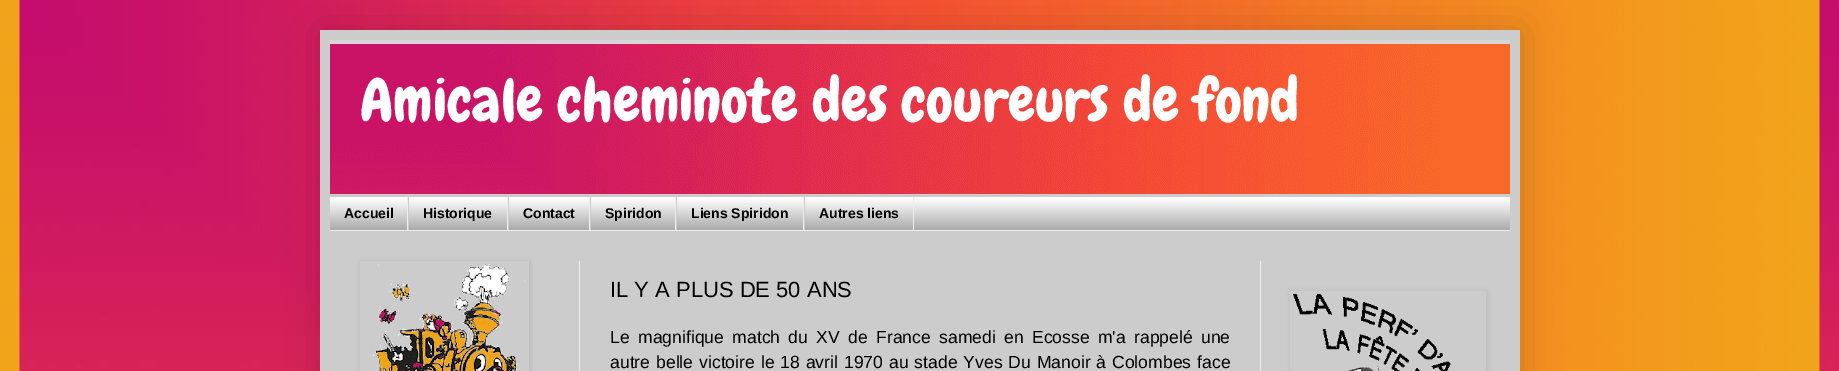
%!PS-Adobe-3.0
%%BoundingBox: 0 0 1839 371
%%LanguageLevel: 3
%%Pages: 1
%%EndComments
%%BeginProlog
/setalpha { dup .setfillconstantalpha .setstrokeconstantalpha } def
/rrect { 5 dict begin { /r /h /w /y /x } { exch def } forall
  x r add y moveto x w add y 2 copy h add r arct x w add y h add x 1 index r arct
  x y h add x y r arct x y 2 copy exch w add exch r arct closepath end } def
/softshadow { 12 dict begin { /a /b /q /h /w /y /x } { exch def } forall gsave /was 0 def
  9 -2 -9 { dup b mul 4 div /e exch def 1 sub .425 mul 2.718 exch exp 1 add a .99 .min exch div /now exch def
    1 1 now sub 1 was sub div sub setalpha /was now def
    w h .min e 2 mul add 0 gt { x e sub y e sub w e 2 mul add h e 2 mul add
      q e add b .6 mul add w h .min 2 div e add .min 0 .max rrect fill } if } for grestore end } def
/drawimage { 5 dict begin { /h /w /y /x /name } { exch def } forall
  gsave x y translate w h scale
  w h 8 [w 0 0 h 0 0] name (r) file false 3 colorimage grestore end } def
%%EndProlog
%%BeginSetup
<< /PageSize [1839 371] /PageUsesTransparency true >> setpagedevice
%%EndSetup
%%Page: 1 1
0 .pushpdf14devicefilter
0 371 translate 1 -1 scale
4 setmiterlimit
1 setgray
0 0 1839 371 rectfill
(images/1.raw) 0 0 1839 371 drawimage
0 setgray
320 30 1200 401 0 20 0.15 softshadow
0.8 setgray
320 30 1200 341 rectfill
(images/2.raw) 330 40 1180 4 drawimage
(images/3.raw) 330 44 1180 150 drawimage
0.6 setgray
330 198 1180 32 rectfill
(images/4.raw) 330 197 1180 33 drawimage
0.933 setgray
330 230 1180 1 rectfill
407 197 1 33 rectfill
507 197 1 33 rectfill
0.8 setgray
408 197 1 33 rectfill
0.933 setgray
589 197 1 33 rectfill
0.8 setgray
508 197 1 33 rectfill
0.933 setgray
675 197 1 33 rectfill
0.8 setgray
590 197 1 33 rectfill
0.933 setgray
803 197 1 33 rectfill
0.8 setgray
676 197 1 33 rectfill
0.933 setgray
913 197 1 33 rectfill
0.8 setgray
804 197 1 33 rectfill
0.933 setgray
579 261 1 110 rectfill
gsave
newpath 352 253 moveto 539 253 lineto 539 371 lineto 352 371 lineto closepath 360 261 moveto 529 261 lineto 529 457 lineto 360 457 lineto closepath eoclip newpath
0 setgray
361 262 169 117 0 2.5 0.1 softshadow
grestore
(images/5.raw) 372 264 154 107 drawimage
gsave
newpath 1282 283 moveto 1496 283 lineto 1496 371 lineto 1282 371 lineto closepath 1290 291 moveto 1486 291 lineto 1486 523 lineto 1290 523 lineto closepath eoclip newpath
0 setgray
1291 292 196 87 0 2.5 0.1 softshadow
grestore
(images/6.raw) 1293 294 158 77 drawimage
1260 261 1 110 rectfill
/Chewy-Regular [60 0 0 -60 0 0] selectfont
1 setgray
360 121 moveto (Amicale cheminote des coureurs de fond) show
/LiberationSans-Bold [14 0 0 -14 0 0] selectfont
0 setgray
344 218 moveto (Accueil) show
423 218 moveto (Historique) show
523 218 moveto (Contact) show
605 218 moveto (Spiridon) show
691 218 moveto (Liens Spiridon) show
819 218 moveto (Autres liens) show
/LiberationSans-Regular [22 0 0 -22 0 0] selectfont
610 297 moveto (IL Y A PLUS DE 50 ANS) show
/LiberationSans-Regular [17.6 0 0 -17.6 0 0] selectfont
610 343 moveto 3.4 0 32 (Le magnifique match du XV de France samedi en Ecosse m'a rappelé une) widthshow
610 368 moveto 1 0 32 (autre belle victoire le 18 avril 1970 au stade Yves Du Manoir à Colombes face) widthshow
.poppdf14devicefilter showpage
%%EOF
